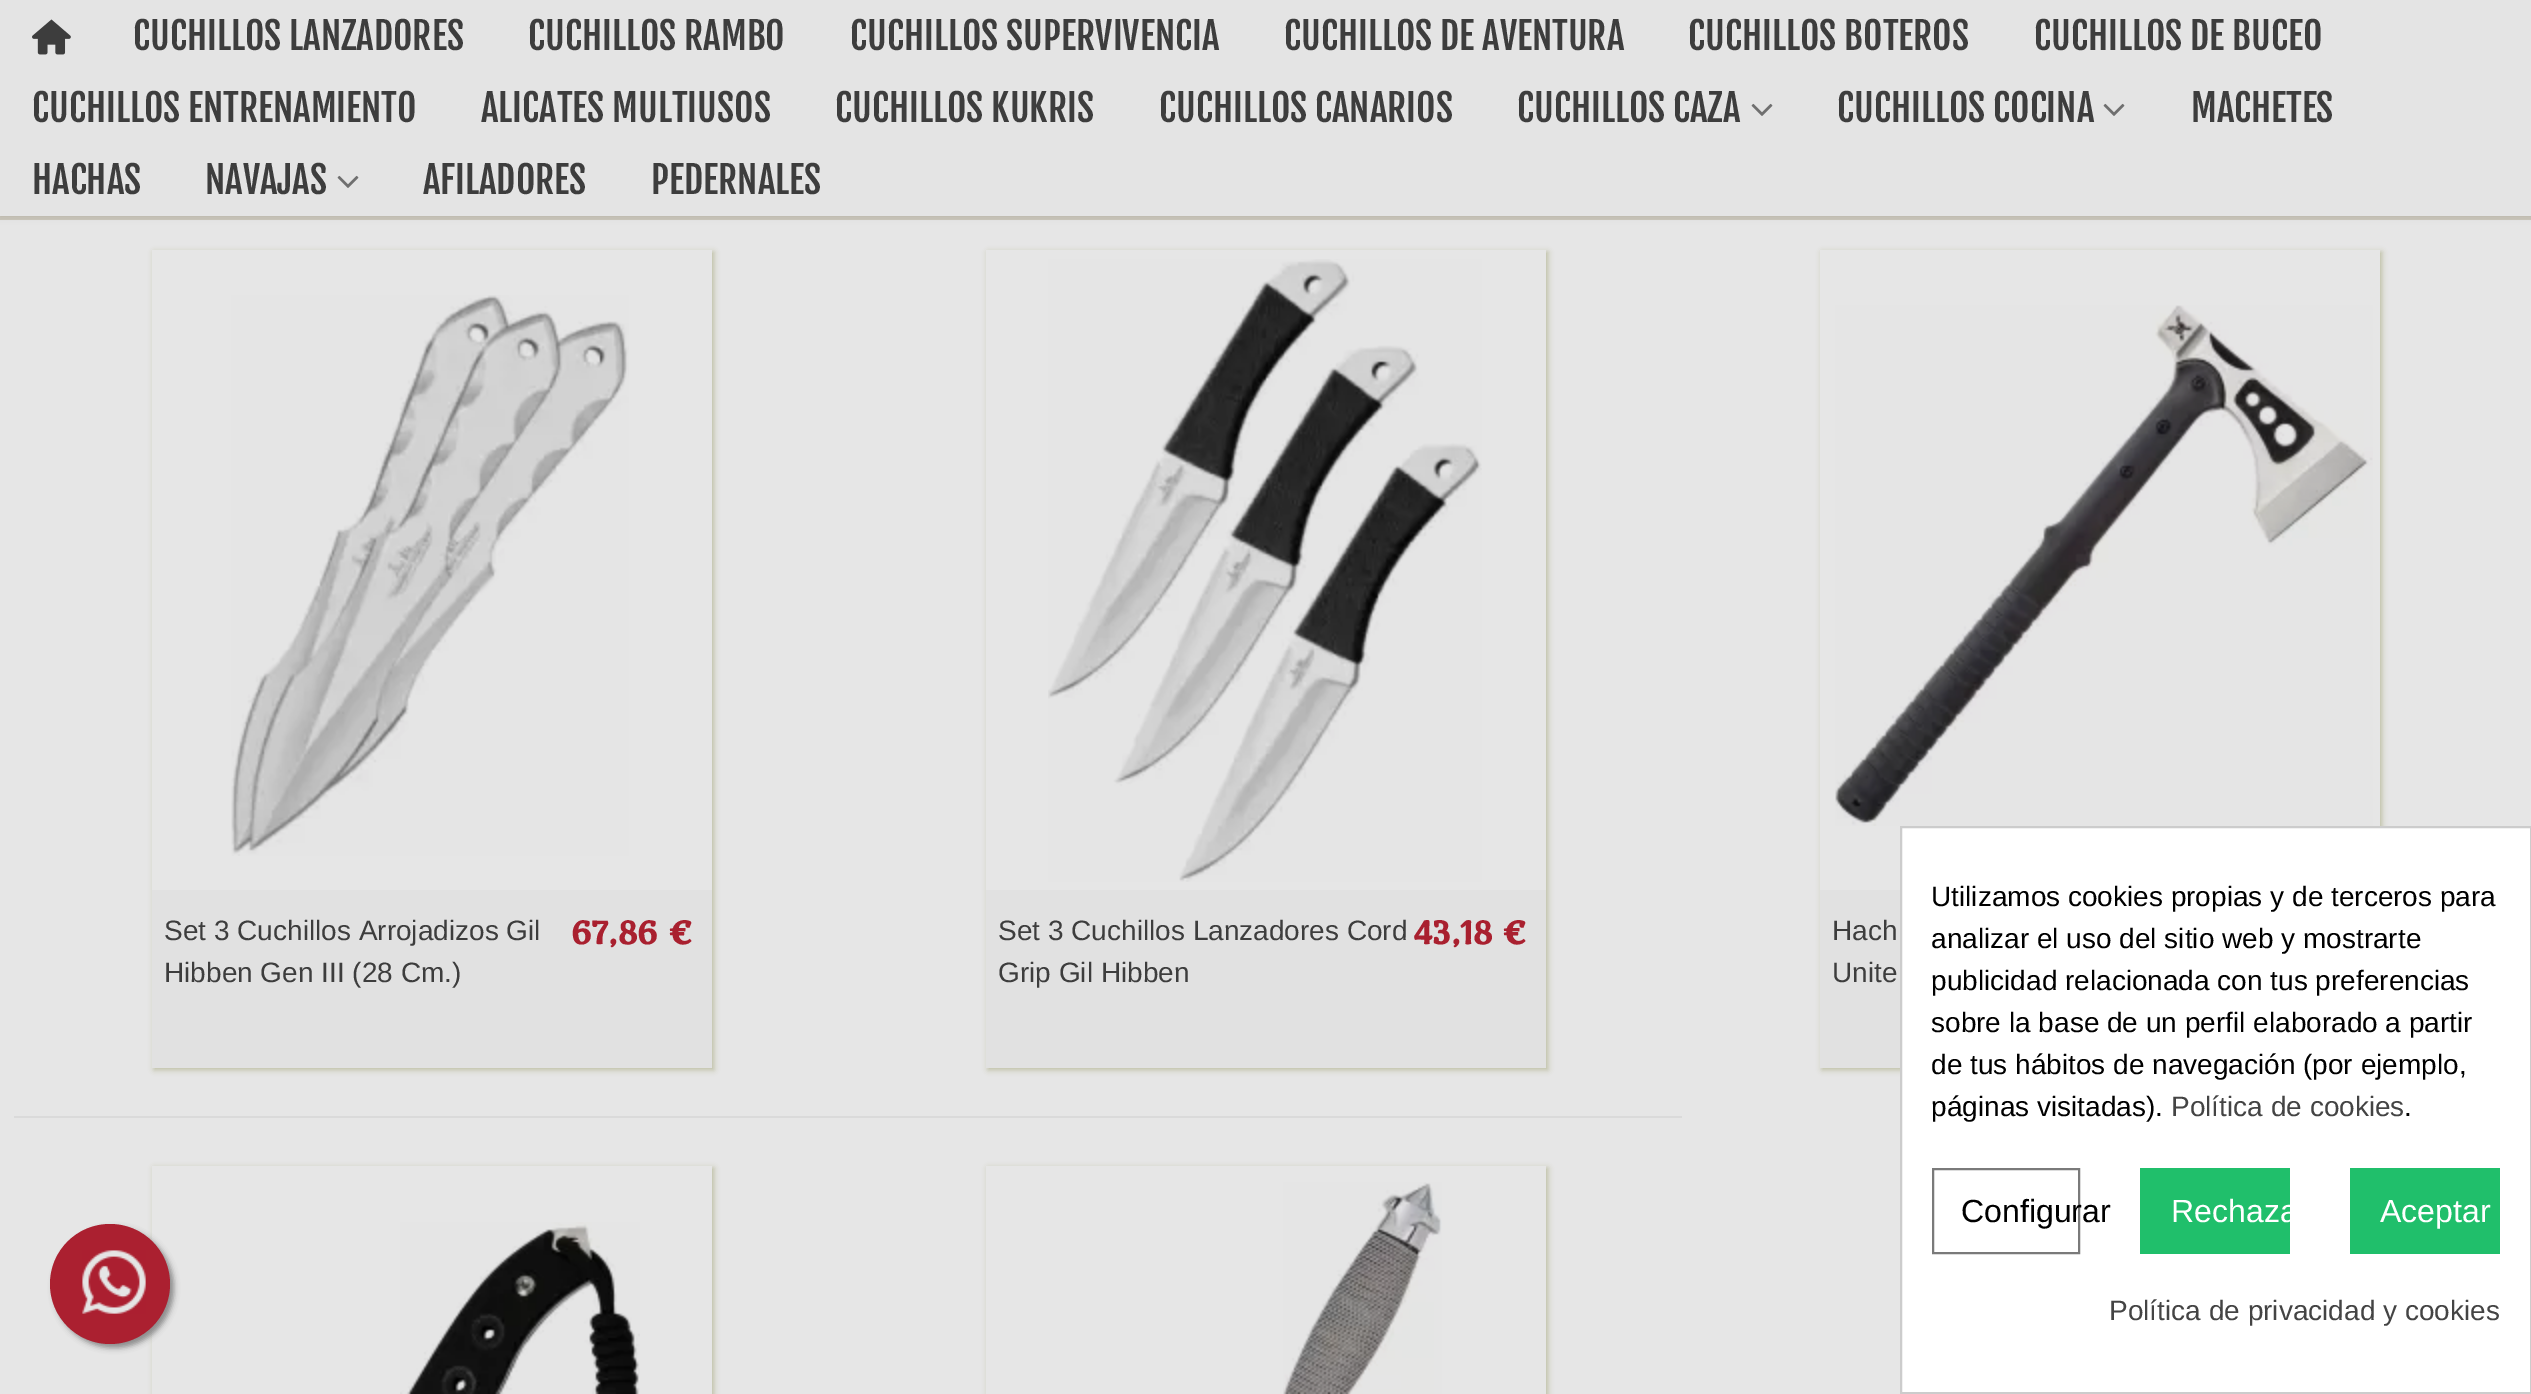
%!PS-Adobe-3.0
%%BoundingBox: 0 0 2531 1394
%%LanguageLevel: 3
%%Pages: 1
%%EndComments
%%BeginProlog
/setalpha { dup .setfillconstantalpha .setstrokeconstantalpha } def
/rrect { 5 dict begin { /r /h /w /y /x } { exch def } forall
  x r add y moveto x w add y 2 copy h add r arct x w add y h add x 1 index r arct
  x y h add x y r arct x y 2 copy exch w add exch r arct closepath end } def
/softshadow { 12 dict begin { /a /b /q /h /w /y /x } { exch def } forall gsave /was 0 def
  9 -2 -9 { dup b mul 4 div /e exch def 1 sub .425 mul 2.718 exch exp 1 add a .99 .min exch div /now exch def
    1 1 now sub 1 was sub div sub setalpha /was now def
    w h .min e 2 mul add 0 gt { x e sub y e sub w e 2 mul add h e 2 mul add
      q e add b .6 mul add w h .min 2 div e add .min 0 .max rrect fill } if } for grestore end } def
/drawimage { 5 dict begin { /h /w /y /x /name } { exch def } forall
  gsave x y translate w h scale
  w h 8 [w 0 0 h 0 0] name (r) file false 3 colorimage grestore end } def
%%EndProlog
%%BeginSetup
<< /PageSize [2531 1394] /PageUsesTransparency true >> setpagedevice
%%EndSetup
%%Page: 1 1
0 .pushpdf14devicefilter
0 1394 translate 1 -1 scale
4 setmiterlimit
0.902 setgray
0 0 2531 1394 rectfill
0.796 0.78 0.733 setrgbcolor
0 216 2531 4 rectfill
0 setgray
0 0 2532 216 0 4 0.1 softshadow
0.894 setgray
0 0 2531 216 rectfill
(images/1.raw) 32 19 39 36 drawimage
(images/2.raw) 1751 103 22 13 drawimage
(images/2.raw) 2103 103 22 13 drawimage
(images/2.raw) 337 175 22 13 drawimage
gsave
newpath 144 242 moveto 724 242 lineto 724 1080 lineto 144 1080 lineto closepath 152 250 moveto 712 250 lineto 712 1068 lineto 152 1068 lineto closepath eoclip newpath
0.353 0.384 0 setrgbcolor
154 252 560 818 0 3 0.3 softshadow
grestore
(images/3.raw) 231 295 398 561 drawimage
0.882 setgray
152 890 560 178 rectfill
gsave
newpath 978 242 moveto 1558 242 lineto 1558 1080 lineto 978 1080 lineto closepath 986 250 moveto 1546 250 lineto 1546 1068 lineto 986 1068 lineto closepath eoclip newpath
0.353 0.384 0 setrgbcolor
988 252 560 818 0 3 0.3 softshadow
grestore
(images/4.raw) 1048 259 434 623 drawimage
986 890 560 178 rectfill
gsave
newpath 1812 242 moveto 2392 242 lineto 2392 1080 lineto 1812 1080 lineto closepath 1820 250 moveto 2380 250 lineto 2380 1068 lineto 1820 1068 lineto closepath eoclip newpath
0.353 0.384 0 setrgbcolor
1822 252 560 818 0 3 0.3 softshadow
grestore
(images/5.raw) 1835 305 538 521 drawimage
1820 890 80 178 rectfill
0.855 setgray
14 1116 1668 2 rectfill
gsave
newpath 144 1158 moveto 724 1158 lineto 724 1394 lineto 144 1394 lineto closepath 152 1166 moveto 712 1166 lineto 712 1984 lineto 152 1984 lineto closepath eoclip newpath
0.353 0.384 0 setrgbcolor
154 1168 560 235 0 3 0.3 softshadow
grestore
(images/6.raw) 400 1222 240 172 drawimage
gsave
newpath 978 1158 moveto 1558 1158 lineto 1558 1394 lineto 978 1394 lineto closepath 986 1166 moveto 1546 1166 lineto 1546 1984 lineto 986 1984 lineto closepath eoclip newpath
0.353 0.384 0 setrgbcolor
988 1168 560 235 0 3 0.3 softshadow
grestore
(images/7.raw) 1283 1182 159 212 drawimage
0.541 setgray
54 1228 120 120 60 3 1 softshadow
0.671 0.125 0.188 setrgbcolor
newpath 110 1284 60 0 360 arc closepath fill
(images/8.raw) 82 1250 64 64 drawimage
1 setgray
newpath 1901 827 moveto 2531 827 lineto 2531 1393 lineto 1901 1393 lineto closepath gsave fill grestore
0.8 setgray
2 setlinewidth
stroke
0.478 setgray
1933 1169 146 84 rectstroke
0.125 0.749 0.42 setrgbcolor
2140 1168 150 86 rectfill
2350 1168 150 86 rectfill
/FjallaOne-Regular [37.25 0 0 -37.25 0 0] selectfont
0.239 setgray
133 50 moveto (CUCHILLOS LANZADORES) show
528 50 moveto (CUCHILLOS RAMBO) show
850 50 moveto (CUCHILLOS SUPERVIVENCIA) show
1284 50 moveto (CUCHILLOS DE AVENTURA) show
1688 50 moveto (CUCHILLOS BOTEROS) show
2034 50 moveto (CUCHILLOS DE BUCEO) show
32 122 moveto (CUCHILLOS ENTRENAMIENTO) show
481 122 moveto (ALICATES MULTIUSOS) show
835 122 moveto (CUCHILLOS KUKRIS) show
1159 122 moveto (CUCHILLOS CANARIOS) show
1517 122 moveto (CUCHILLOS CAZA) show
1837 122 moveto (CUCHILLOS COCINA) show
2191 122 moveto (MACHETES) show
32 194 moveto (HACHAS) show
205 194 moveto (NAVAJAS) show
423 194 moveto (AFILADORES) show
651 194 moveto (PEDERNALES) show
/LiberationSans-Regular [28 0 0 -28 0 0] selectfont
164 940 moveto (Set 3 Cuchillos Arrojadizos Gil) show
164 982 moveto (Hibben Gen III \(28 Cm.\)) show
/MarkoOne-Bold [32 0 0 -32 0 0] selectfont
0.663 0.125 0.184 setrgbcolor
571 944 moveto (67,86 €) show
/LiberationSans-Regular [28 0 0 -28 0 0] selectfont
0.239 setgray
998 940 moveto (Set 3 Cuchillos Lanzadores Cord) show
998 982 moveto (Grip Gil Hibben) show
/MarkoOne-Bold [32 0 0 -32 0 0] selectfont
0.663 0.125 0.184 setrgbcolor
1413 944 moveto (43,18 €) show
/LiberationSans-Regular [28 0 0 -28 0 0] selectfont
0.239 setgray
1832 940 moveto (Hach) show
1832 982 moveto (Unite) show
0 setgray
1931 906 moveto (Utilizamos cookies propias y de terceros para) show
1931 948 moveto (analizar el uso del sitio web y mostrarte) show
1931 990 moveto (publicidad relacionada con tus preferencias) show
1931 1032 moveto (sobre la base de un perfil elaborado a partir) show
1931 1074 moveto (de tus hábitos de navegación \(por ejemplo,) show
1931 1116 moveto (páginas visitadas\).) show
0.267 setgray
2171 1116 moveto (Política de cookies) show
0 setgray
2404 1116 moveto (.) show
/LiberationSans-Regular [32 0 0 -32 0 0] selectfont
1961 1222 moveto (Configurar) show
1 setgray
2171 1222 moveto (Rechaza) show
2380 1222 moveto (Aceptar) show
/LiberationSans-Regular [28 0 0 -28 0 0] selectfont
0.267 setgray
2109 1320 moveto (Política de privacidad y cookies) show
.poppdf14devicefilter showpage
%%EOF
